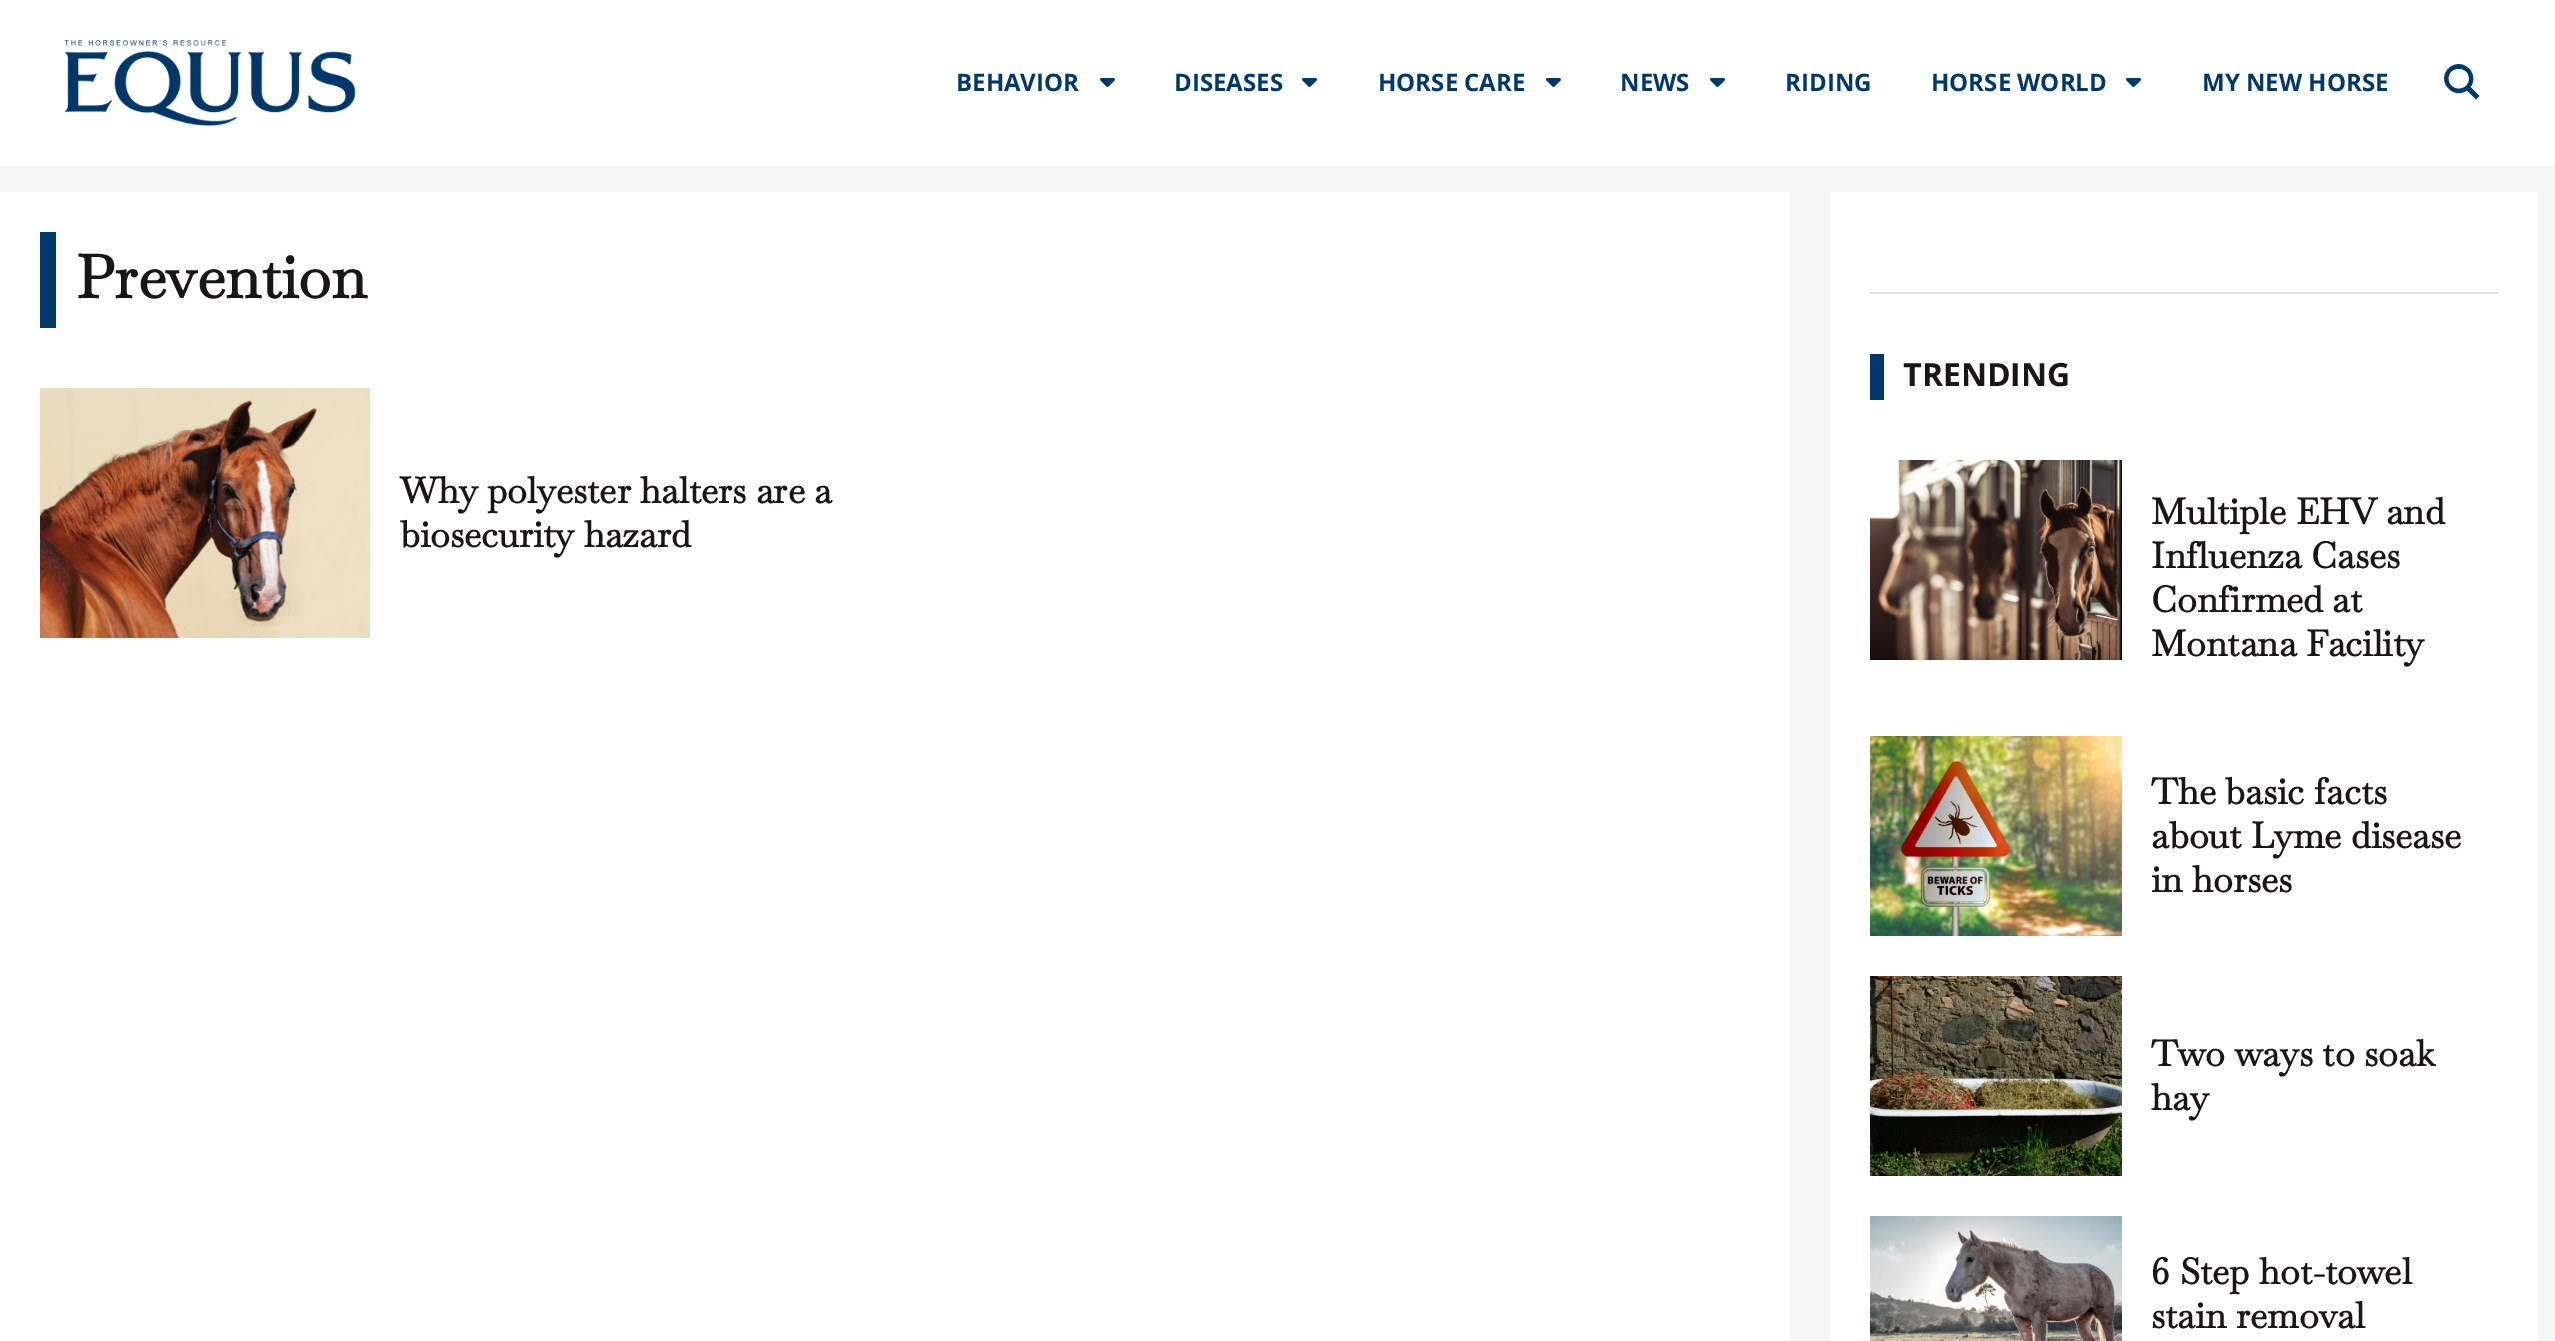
%!PS-Adobe-3.0
%%BoundingBox: 0 0 2555 1341
%%LanguageLevel: 3
%%Pages: 1
%%EndComments
%%BeginProlog
/drawimage { 5 dict begin { /h /w /y /x /name } { exch def } forall
  gsave x y translate w h scale
  w h 8 [w 0 0 h 0 0] name (r) file false 3 colorimage grestore end } def
%%EndProlog
%%BeginSetup
<< /PageSize [2555 1341] >> setpagedevice
%%EndSetup
%%Page: 1 1
0 1341 translate 1 -1 scale
4 setmiterlimit
0.965 setgray
0 0 2555 1341 rectfill
1 setgray
0 0 2555 166 rectfill
(images/1.raw) 64 40 292 86 drawimage
(images/2.raw) 1100 78 15 9 drawimage
(images/2.raw) 1302 78 15 9 drawimage
(images/2.raw) 1546 78 15 9 drawimage
(images/2.raw) 1710 78 15 9 drawimage
(images/2.raw) 2126 78 15 9 drawimage
0 0.22 0.424 setrgbcolor
newpath 2479.5 96 moveto 2470.5 87 lineto 2480.5 73 2461.5 56 2448.5 68.5 curveto 2436 81 2453 100 2467 90.5 curveto 2476 99.5 lineto closepath 2448.5 78.5 moveto 2448.5 65.5 2469 65.5 2469 78.5 curveto 2469 92 2448.5 92 2448.5 78.5 curveto closepath fill
1 setgray
0 192 1790 1149 rectfill
0 0.22 0.424 setrgbcolor
40 232 16 96 rectfill
(images/3.raw) 40 388 330 250 drawimage
1 setgray
1830 192 708 1149 rectfill
0.875 setgray
1870 292 628 2 rectfill
0 0.22 0.424 setrgbcolor
1870 354 14 46 rectfill
(images/4.raw) 1870 460 252 200 drawimage
(images/5.raw) 1870 736 252 200 drawimage
(images/6.raw) 1870 976 252 200 drawimage
(images/7.raw) 1870 1216 252 125 drawimage
/OpenSans-Bold [24 0 0 -24 0 0] selectfont
956 91 moveto (BEHAVIOR) show
1174 91 moveto (DISEASES) show
1378 91 moveto (HORSE CARE) show
1620 91 moveto (NEWS) show
1785 91 moveto (RIDING) show
1931 91 moveto (HORSE WORLD) show
2202 91 moveto (MY NEW HORSE) show
/Baskervville-Bold [60 0 0 -60 0 0] selectfont
0.098 0.086 0.086 setrgbcolor
76 298 moveto (Prevention) show
/Baskervville-Bold [36 0 0 -36 0 0] selectfont
400 503 moveto (Why polyester halters are a) show
400 547 moveto (biosecurity hazard) show
/OpenSans-Bold [32 0 0 -32 0 0] selectfont
1903 386 moveto (TRENDING) show
/Baskervville-Bold [36 0 0 -36 0 0] selectfont
2151 524 moveto (Multiple EHV and) show
2151 568 moveto (Influenza Cases) show
2151 612 moveto (Confirmed at) show
2151 656 moveto (Montana Facility) show
2151 804 moveto (The basic facts) show
2151 848 moveto (about Lyme disease) show
2151 892 moveto (in horses) show
2151 1066 moveto (Two ways to soak) show
2151 1110 moveto (hay) show
2151 1284 moveto (6 Step hot-towel) show
2151 1328 moveto (stain removal) show
showpage
%%EOF
